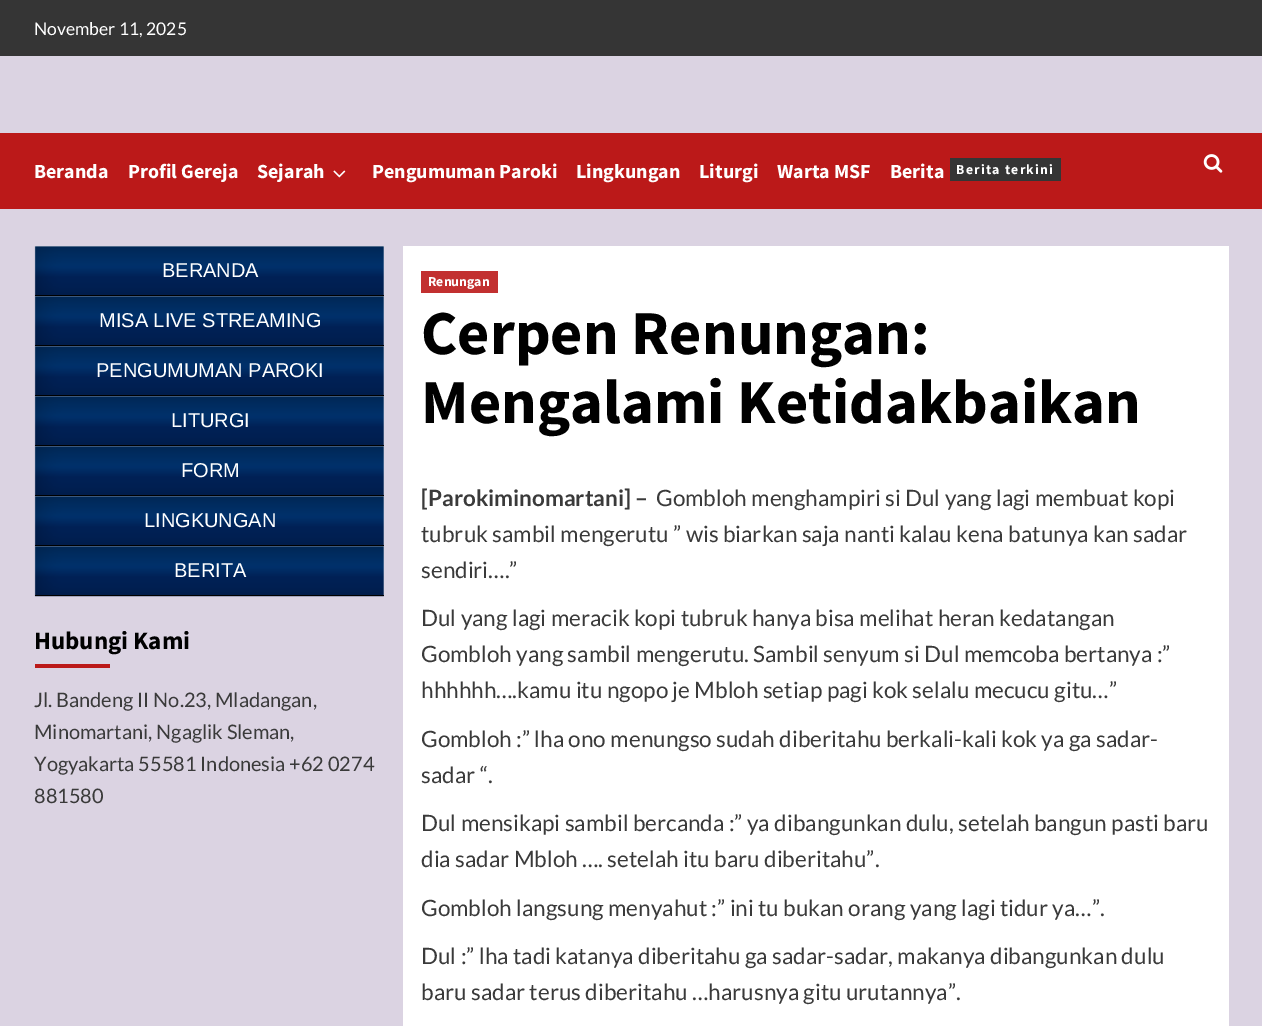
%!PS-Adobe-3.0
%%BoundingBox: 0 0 1262 1026
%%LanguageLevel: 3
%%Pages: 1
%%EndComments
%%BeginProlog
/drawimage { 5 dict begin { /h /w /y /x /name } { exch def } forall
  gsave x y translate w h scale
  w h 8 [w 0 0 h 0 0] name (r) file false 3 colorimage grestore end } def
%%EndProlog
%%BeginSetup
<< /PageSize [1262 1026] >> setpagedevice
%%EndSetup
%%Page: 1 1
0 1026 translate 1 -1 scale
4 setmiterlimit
0.859 0.827 0.886 setrgbcolor
0 0 1262 1026 rectfill
0.208 setgray
0 0 1262 56 rectfill
0.733 0.098 0.098 setrgbcolor
0 133 1262 76 rectfill
(images/1.raw) 333 170 13 8 drawimage
0.208 setgray
950 158 111 23 rectfill
(images/2.raw) 1203 154 20 19 drawimage
1 setgray
35 246 349 349 rectfill
(images/3.raw) 34 246 350 51 drawimage
0 setgray
35 295 349 1 rectfill
(images/4.raw) 34 296 350 51 drawimage
35 345 349 1 rectfill
(images/4.raw) 34 346 350 51 drawimage
35 395 349 1 rectfill
(images/4.raw) 34 396 350 51 drawimage
35 445 349 1 rectfill
(images/4.raw) 34 446 350 51 drawimage
35 495 349 1 rectfill
(images/4.raw) 34 496 350 51 drawimage
35 545 349 1 rectfill
(images/5.raw) 34 546 350 51 drawimage
35 595 349 1 rectfill
0.733 0.098 0.098 setrgbcolor
35 664 75 4 rectfill
1 setgray
403 246 826 780 rectfill
0.761 0.188 0.188 setrgbcolor
421 271 77 22 rectfill
/Lato-Regular [17.5 0 0 -17.5 0 0] selectfont
1 setgray
34 35 moveto (November 11, 2025) show
/SourceSansPro-Bold [20 0 0 -20 0 0] selectfont
34 178 moveto (Beranda) show
128 178 moveto (Profil Gereja) show
257 178 moveto (Sejarah) show
372 178 moveto (Pengumuman Paroki) show
576 178 moveto (Lingkungan) show
699 178 moveto (Liturgi) show
777 178 moveto (Warta MSF) show
890 178 moveto (Berita) show
/SourceSansPro-Bold [13.75 0 0 -13.75 0 0] selectfont
956 174 moveto 1.25 0 (Berita terkini) ashow
/LiberationSans-Regular [20 0 0 -20 0 0] selectfont
162 277 moveto (BERANDA) show
99 327 moveto (MISA LIVE STREAMING) show
96 377 moveto (PENGUMUMAN PAROKI) show
171 427 moveto (LITURGI) show
181 477 moveto (FORM) show
144 527 moveto (LINGKUNGAN) show
174 577 moveto (BERITA) show
/SourceSansPro-Bold [25 0 0 -25 0 0] selectfont
0 setgray
34 649 moveto (Hubungi Kami) show
/Lato-Regular [20 0 0 -20 0 0] selectfont
0.227 setgray
34 707 moveto (Jl. Bandeng II No.23, Mladangan,) show
34 739 moveto (Minomartani, Ngaglik Sleman,) show
34 771 moveto (Yogyakarta 55581 Indonesia +62 0274) show
34 803 moveto (881580) show
/SourceSansPro-Bold [13.75 0 0 -13.75 0 0] selectfont
1 setgray
428 286 moveto (Renungan) show
/SourceSansPro-Bold [62.5 0 0 -62.5 0 0] selectfont
0 setgray
421 354 moveto (Cerpen Renungan:) show
421 423 moveto (Mengalami Ketidakbaikan) show
/Lato-Bold [22.5 0 0 -22.5 0 0] selectfont
0.227 setgray
421 506 moveto ([Parokiminomartani] –) show
/Lato-Regular [22.5 0 0 -22.5 0 0] selectfont
656 506 moveto (Gombloh menghampiri si Dul yang lagi membuat kopi) show
421 542 moveto (tubruk sambil mengerutu ” wis biarkan saja nanti kalau kena batunya kan sadar) show
421 578 moveto (sendiri….”) show
421 626 moveto (Dul yang lagi meracik kopi tubruk hanya bisa melihat heran kedatangan) show
421 662 moveto (Gombloh yang sambil mengerutu. Sambil senyum si Dul memcoba bertanya :”) show
421 698 moveto (hhhhhh….kamu itu ngopo je Mbloh setiap pagi kok selalu mecucu gitu…”) show
421 747 moveto (Gombloh :” lha ono menungso sudah diberitahu berkali-kali kok ya ga sadar-) show
421 783 moveto (sadar “.) show
421 831 moveto (Dul mensikapi sambil bercanda :” ya dibangunkan dulu, setelah bangun pasti baru) show
421 867 moveto (dia sadar Mbloh …. setelah itu baru diberitahu”.) show
421 916 moveto (Gombloh langsung menyahut :” ini tu bukan orang yang lagi tidur ya…”.) show
421 964 moveto (Dul :” lha tadi katanya diberitahu ga sadar-sadar, makanya dibangunkan dulu) show
421 1000 moveto (baru sadar terus diberitahu …harusnya gitu urutannya”.) show
showpage
%%EOF
